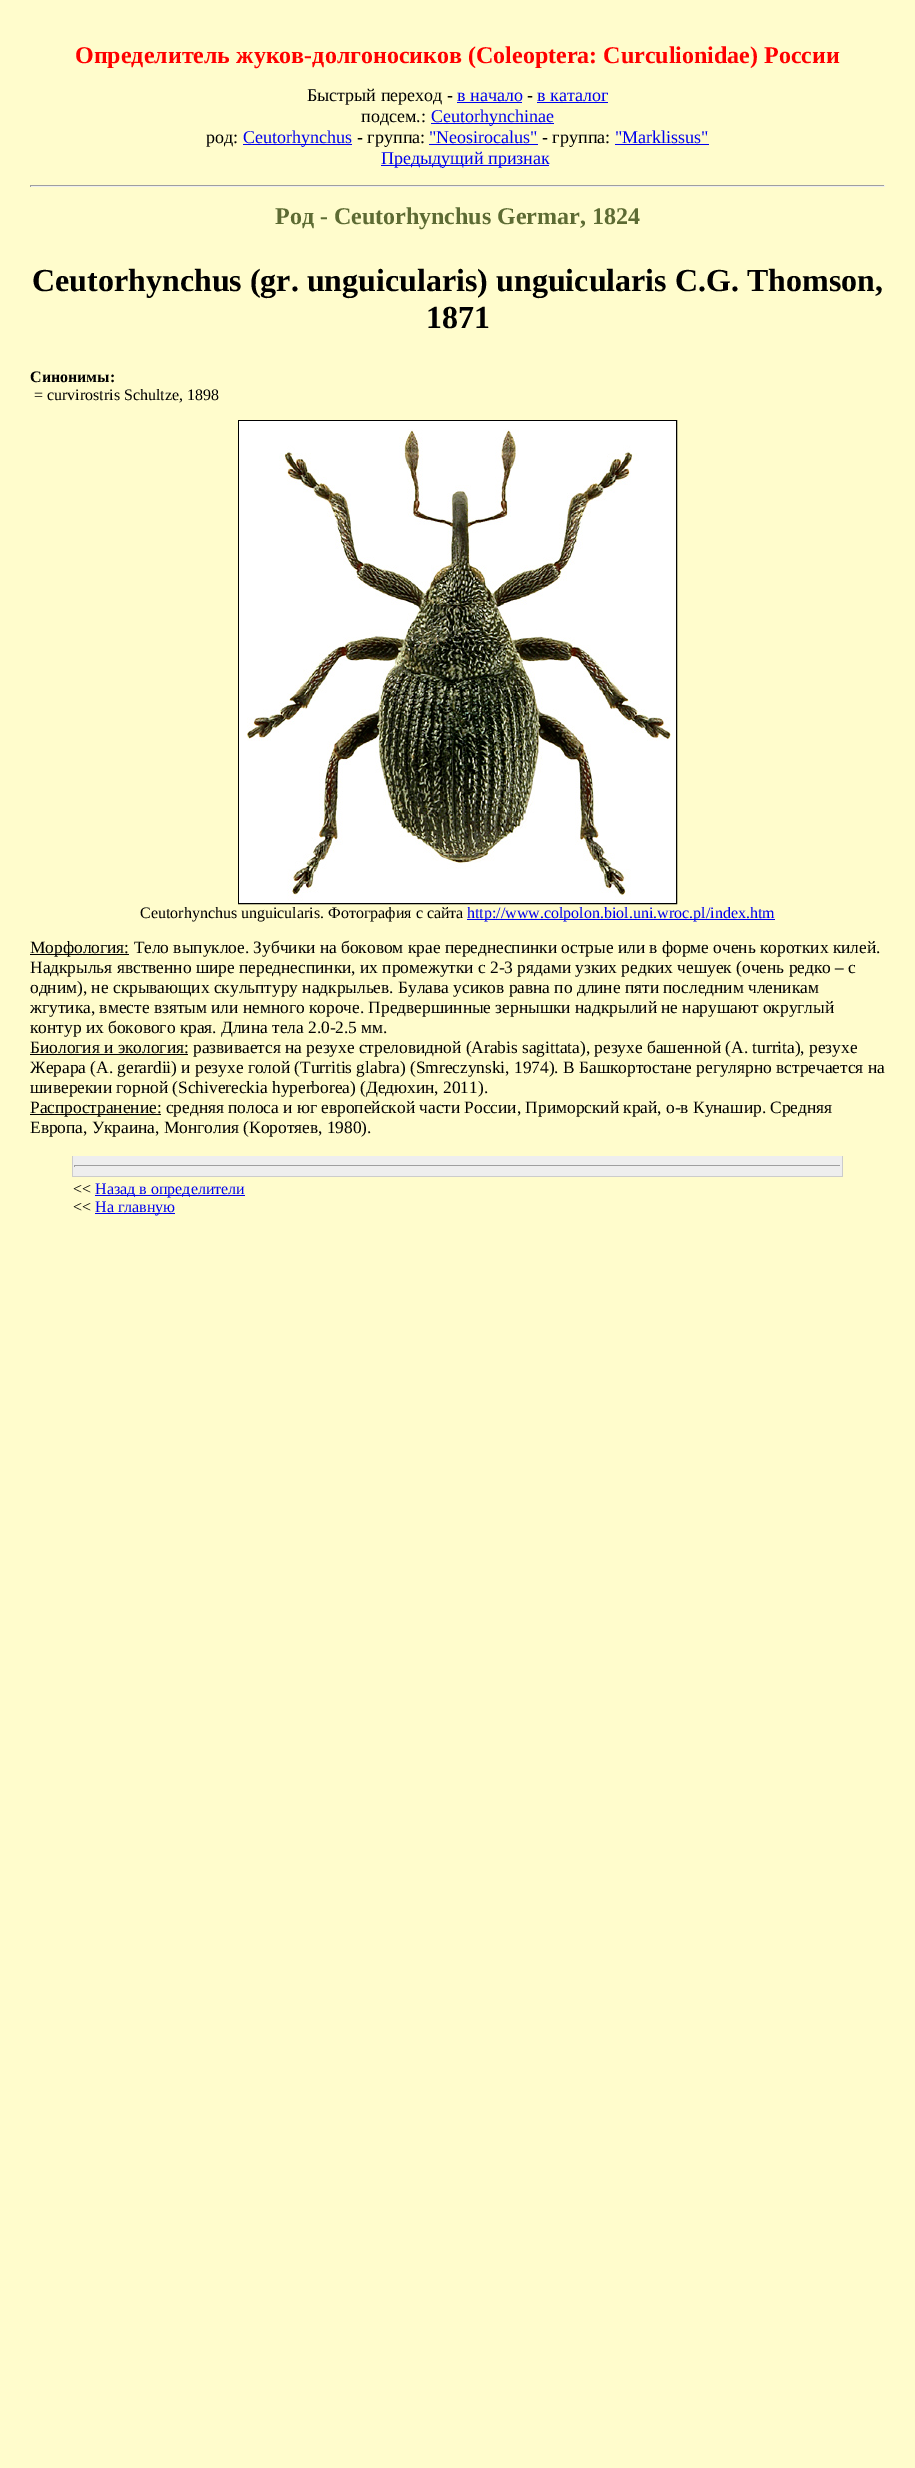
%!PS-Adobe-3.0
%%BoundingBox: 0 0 915 2468
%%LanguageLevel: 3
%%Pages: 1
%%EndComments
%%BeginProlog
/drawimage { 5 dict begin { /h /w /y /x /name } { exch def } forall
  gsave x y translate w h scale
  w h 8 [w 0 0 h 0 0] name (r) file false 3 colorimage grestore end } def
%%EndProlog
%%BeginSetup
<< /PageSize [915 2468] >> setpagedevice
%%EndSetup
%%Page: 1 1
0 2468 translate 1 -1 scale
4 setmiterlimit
1 0.988 0.8 setrgbcolor
0 0 915 2468 rectfill
0 0 0.933 setrgbcolor
457 102 65 1 rectfill
537 102 71 1 rectfill
431 123 123 1 rectfill
243 144 109 1 rectfill
429 144 109 1 rectfill
615 144 94 1 rectfill
381 165 168 1 rectfill
0.624 setgray
30 185 855 1 rectfill
0.933 setgray
884 185 1 2 rectfill
30 186 855 1 rectfill
0.624 setgray
30 185 1 2 rectfill
0 setgray
238.5 420.5 438 483 rectstroke
(images/1.raw) 239 421 437 482 drawimage
0 0 0.933 setrgbcolor
467 919 308 1 rectfill
0 setgray
30 954 99 1 rectfill
30 1054 158 1 rectfill
30 1114 131 1 rectfill
0.933 setgray
73 1156 769 20 rectfill
0.8 setgray
842 1156 1 21 rectfill
72 1176 771 1 rectfill
72 1156 1 21 rectfill
0.624 setgray
74 1165 767 1 rectfill
0.933 setgray
840 1165 1 2 rectfill
0.624 setgray
74 1165 1 2 rectfill
0 0 0.933 setrgbcolor
95 1195 150 1 rectfill
95 1213 80 1 rectfill
/LiberationSerif-Bold [24 0 0 -24 0 0] selectfont
1 0 0 setrgbcolor
75 63 moveto (Определитель жуков-долгоносиков \(Coleoptera: Curculionidae\) России) show
/LiberationSerif-Regular [18 0 0 -18 0 0] selectfont
0 setgray
307 101 moveto (Быстрый переход -) show
0 0 0.933 setrgbcolor
457 101 moveto (в начало) show
0 setgray
527 101 moveto (-) show
0 0 0.933 setrgbcolor
537 101 moveto (в каталог) show
0 setgray
361 122 moveto (подсем.:) show
0 0 0.933 setrgbcolor
431 122 moveto (Ceutorhynchinae) show
0 setgray
206 143 moveto (род:) show
0 0 0.933 setrgbcolor
243 143 moveto (Ceutorhynchus) show
0 setgray
357 143 moveto (- группа:) show
0 0 0.933 setrgbcolor
429 143 moveto ("Neosirocalus") show
0 setgray
542 143 moveto (- группа:) show
0 0 0.933 setrgbcolor
615 143 moveto ("Marklissus") show
381 164 moveto (Предыдущий признак) show
/LiberationSerif-Bold [24 0 0 -24 0 0] selectfont
0.365 0.42 0.2 setrgbcolor
275 224 moveto (Род - Ceutorhynchus Germar, 1824) show
/LiberationSerif-Bold [32 0 0 -32 0 0] selectfont
0 setgray
32 291 moveto (Ceutorhynchus \(gr. unguicularis\) unguicularis C.G. Thomson,) show
426 328 moveto (1871) show
/LiberationSerif-Bold [16 0 0 -16 0 0] selectfont
30 382 moveto (Синонимы:) show
/LiberationSerif-Regular [16 0 0 -16 0 0] selectfont
34 400 moveto (= curvirostris Schultze, 1898) show
140 918 moveto (Ceutorhynchus unguicularis. Фотография с сайта) show
0 0 0.933 setrgbcolor
467 918 moveto (http://www.colpolon.biol.uni.wroc.pl/index.htm) show
/LiberationSerif-Regular [17.35 0 0 -17.35 0 0] selectfont
0 setgray
30 953 moveto (Морфология: Тело выпуклое. Зубчики на боковом крае переднеспинки острые или в форме очень коротких килей.) show
30 973 moveto (Надкрылья явственно шире переднеспинки, их промежутки с 2-3 рядами узких редких чешуек \(очень редко – с) show
30 993 moveto (одним\), не скрывающих скульптуру надкрыльев. Булава усиков равна по длине пяти последним членикам) show
30 1013 moveto (жгутика, вместе взятым или немного короче. Предвершинные зернышки надкрылий не нарушают округлый) show
30 1033 moveto (контур их бокового края. Длина тела 2.0-2.5 мм.) show
30 1053 moveto (Биология и экология: развивается на резухе стреловидной \(Arabis sagittata\), резухе башенной \(A. turrita\), резухе) show
30 1073 moveto (Жерара \(A. gerardii\) и резухе голой \(Turritis glabra\) \(Smreczynski, 1974\). В Башкортостане регулярно встречается на) show
30 1093 moveto (шиверекии горной \(Schivereckia hyperborea\) \(Дедюхин, 2011\).) show
30 1113 moveto (Распространение: средняя полоса и юг европейской части России, Приморский край, о-в Кунашир. Средняя) show
30 1133 moveto (Европа, Украина, Монголия \(Коротяев, 1980\).) show
/LiberationSerif-Regular [16 0 0 -16 0 0] selectfont
73 1194 moveto (<<) show
0 0 0.933 setrgbcolor
95 1194 moveto (Назад в определители) show
0 setgray
73 1212 moveto (<<) show
0 0 0.933 setrgbcolor
95 1212 moveto (На главную) show
showpage
%%EOF
